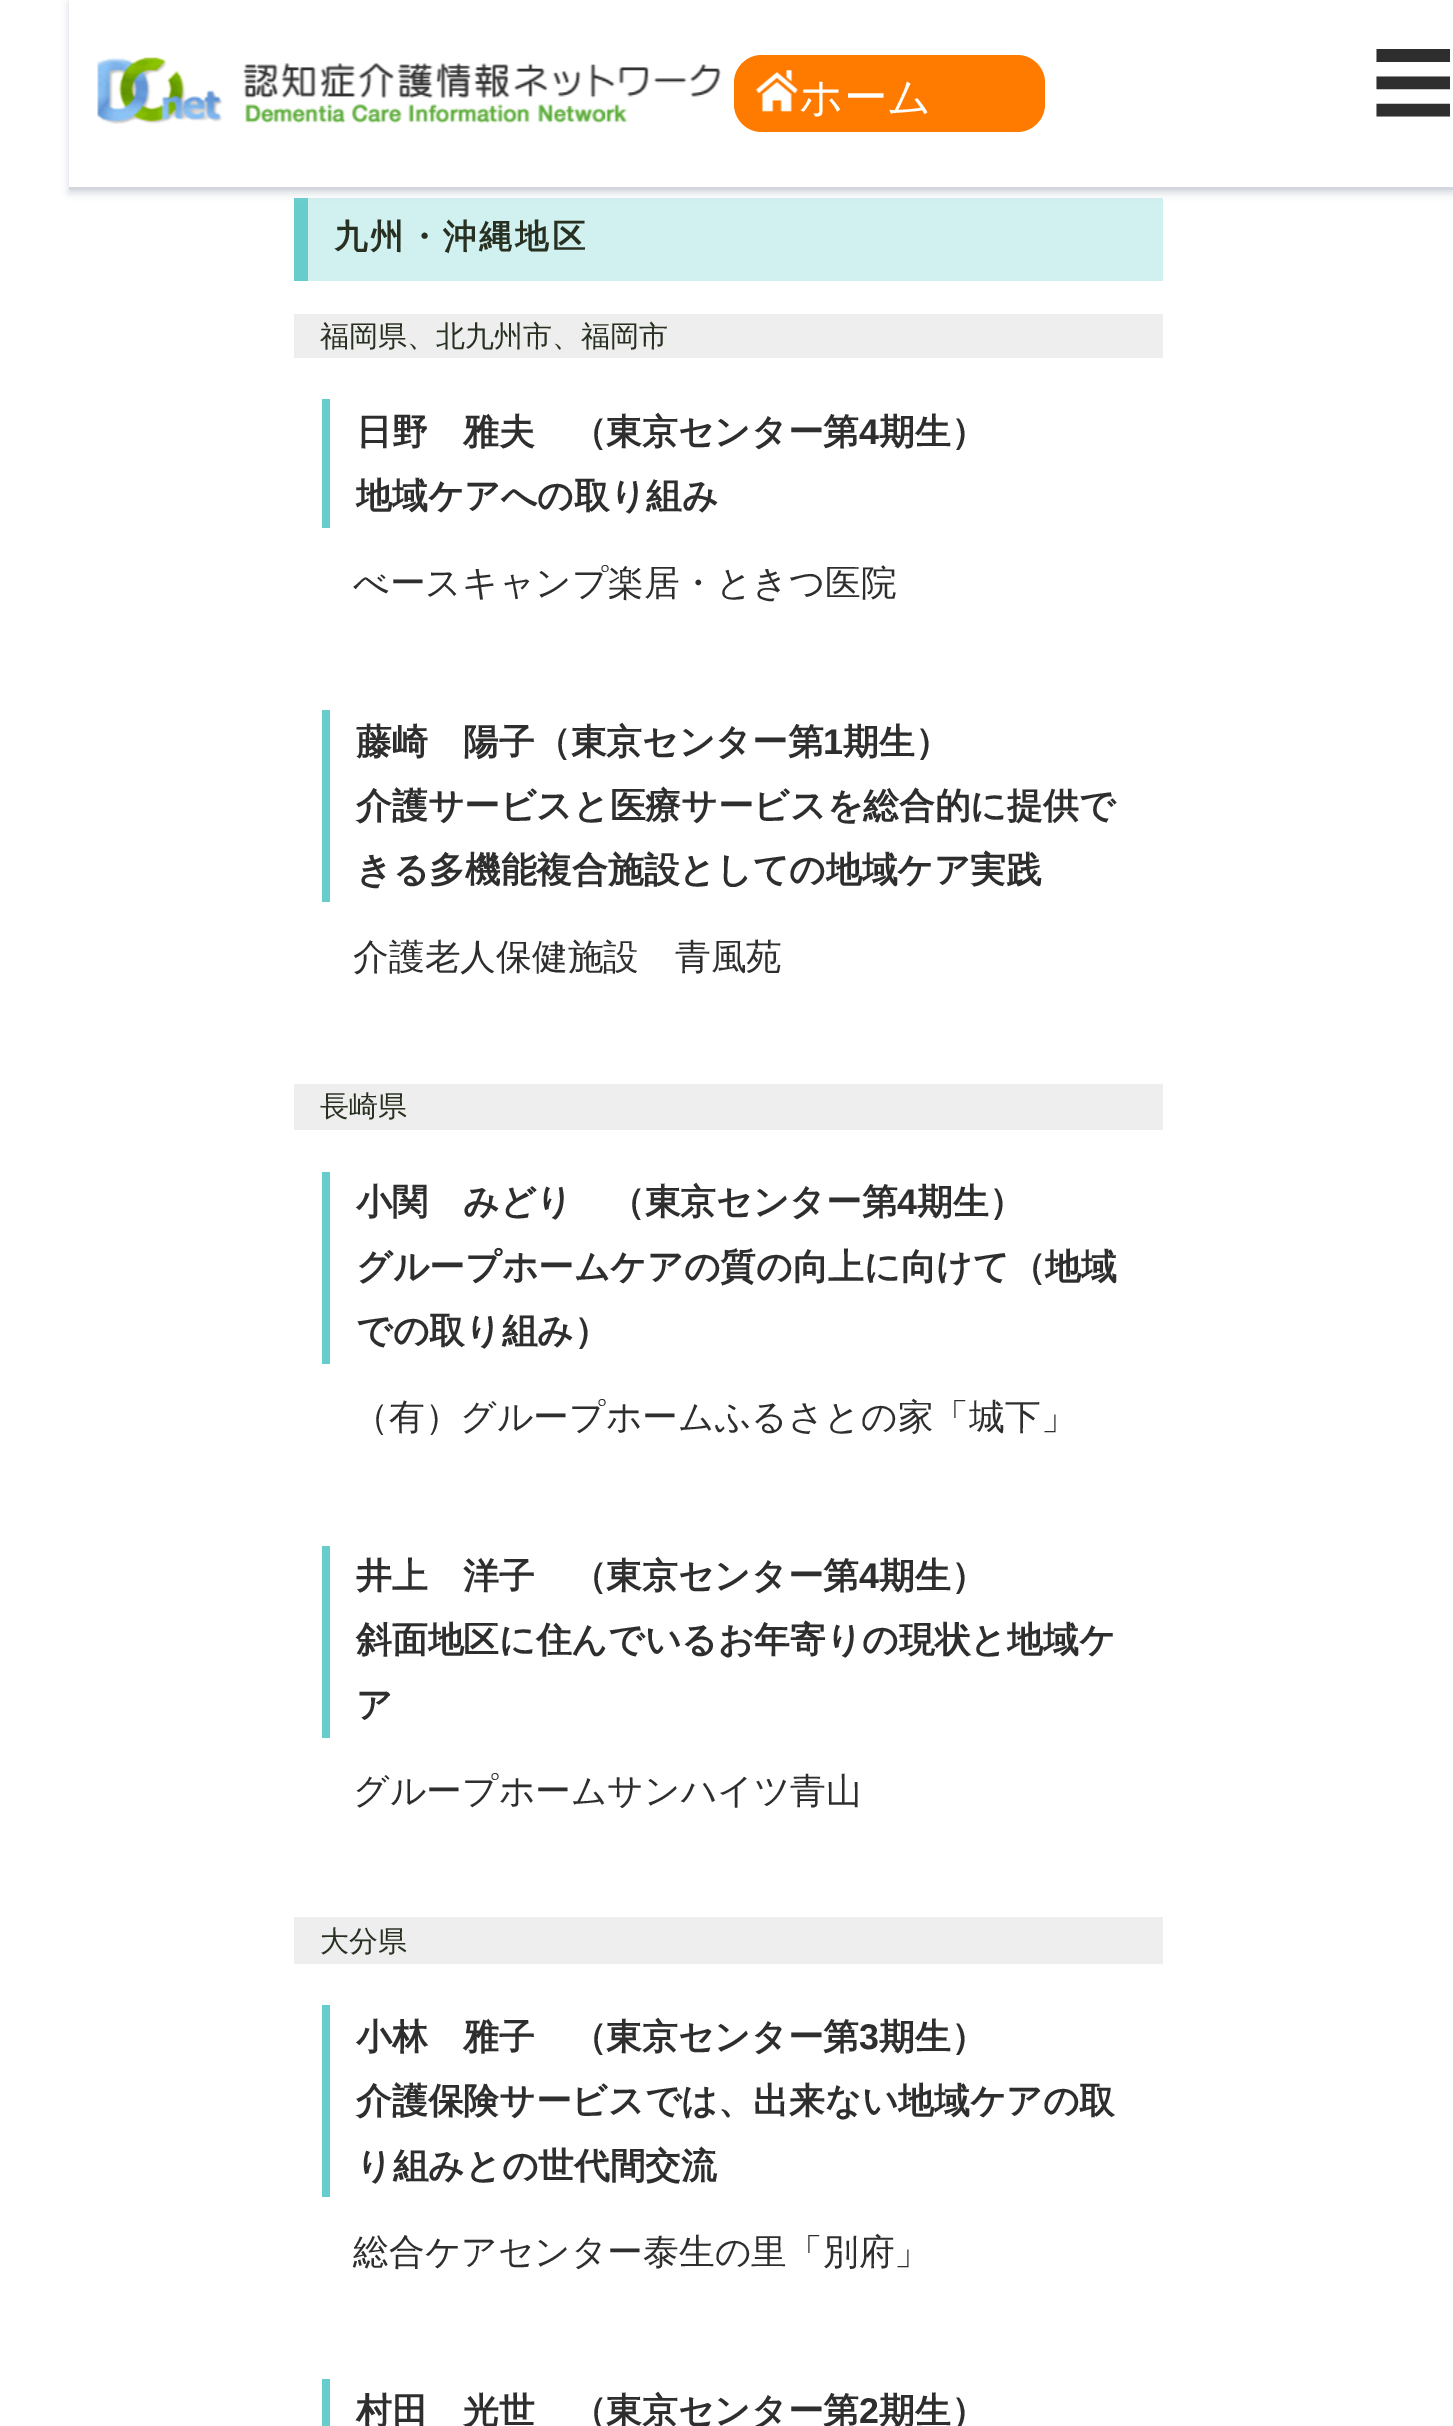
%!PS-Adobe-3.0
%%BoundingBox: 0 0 1453 2426
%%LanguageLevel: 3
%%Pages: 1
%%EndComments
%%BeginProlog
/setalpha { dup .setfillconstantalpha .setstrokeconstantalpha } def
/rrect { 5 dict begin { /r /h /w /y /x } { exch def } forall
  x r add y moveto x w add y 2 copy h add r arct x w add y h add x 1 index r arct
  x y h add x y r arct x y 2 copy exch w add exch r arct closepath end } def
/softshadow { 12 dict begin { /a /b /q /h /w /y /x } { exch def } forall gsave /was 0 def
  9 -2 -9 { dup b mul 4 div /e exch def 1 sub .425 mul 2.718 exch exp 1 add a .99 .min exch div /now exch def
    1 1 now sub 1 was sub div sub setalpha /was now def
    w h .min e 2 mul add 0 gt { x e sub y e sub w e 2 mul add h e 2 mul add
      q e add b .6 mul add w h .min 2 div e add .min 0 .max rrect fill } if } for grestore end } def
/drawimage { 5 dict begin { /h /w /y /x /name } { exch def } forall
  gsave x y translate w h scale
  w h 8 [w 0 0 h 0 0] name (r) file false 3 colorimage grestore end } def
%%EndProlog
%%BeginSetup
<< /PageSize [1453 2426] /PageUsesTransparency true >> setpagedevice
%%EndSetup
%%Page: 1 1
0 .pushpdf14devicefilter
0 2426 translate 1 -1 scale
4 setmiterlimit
1 setgray
0 0 1453 2426 rectfill
0.82 0.941 0.941 setrgbcolor
308 198 855 83 rectfill
0.4 0.8 0.8 setrgbcolor
294 198 14 83 rectfill
0.827 0.839 0.867 setrgbcolor
69 3 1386 190 0 4 1 softshadow
1 setgray
69 0 1384 187 rectfill
0.827 0.839 0.867 setrgbcolor
69 187 1384 3 rectfill
(images/1.raw) 97 57 624 67 drawimage
1 0.482 0 setrgbcolor
734 55 311 77 28 rrect fill
(images/2.raw) 755 70 43 42 drawimage
0.933 setgray
294 314 869 44 rectfill
0.4 0.8 0.8 setrgbcolor
322 399 8 129 rectfill
322 710 8 192 rectfill
0.933 setgray
294 1084 869 46 rectfill
0.4 0.8 0.8 setrgbcolor
322 1172 8 192 rectfill
322 1546 8 192 rectfill
0.933 setgray
294 1917 869 47 rectfill
0.4 0.8 0.8 setrgbcolor
322 2005 8 192 rectfill
322 2379 8 47 rectfill
/WenQuanYiZenHei-Medium [43.5 0 0 -43.5 0 0] selectfont
1 setgray
799 112 moveto (ホーム) show
/WenQuanYiZenHei-Medium [82 0 0 -82 0 0] selectfont
0.18 setgray
1372 113 moveto (☰) show
/WenQuanYiZenHei-Bold [33.5 0 0 -33.5 0 0] selectfont
0.157 0.192 0.129 setrgbcolor
334 248 moveto 2.75 0 (九州・沖縄地区) ashow
/WenQuanYiZenHei-Medium [29 0 0 -29 0 0] selectfont
320 346 moveto (福岡県、北九州市、福岡市) show
/WenQuanYiZenHei-Bold [35.75 0 0 -35.75 0 0] selectfont
0.18 setgray
356 444 moveto (日野　雅夫　（東京センター第) show
/LiberationSans-Bold [35.75 0 0 -35.75 0 0] selectfont
859 444 moveto (4) show
/WenQuanYiZenHei-Bold [35.75 0 0 -35.75 0 0] selectfont
879 444 moveto (期生）) show
356 508 moveto (地域ケアへの取り組み) show
/WenQuanYiZenHei-Medium [35.75 0 0 -35.75 0 0] selectfont
353 595 moveto (べースキャンプ楽居・ときつ医院) show
/WenQuanYiZenHei-Bold [35.75 0 0 -35.75 0 0] selectfont
356 754 moveto (藤崎　陽子（東京センター第) show
/LiberationSans-Bold [35.75 0 0 -35.75 0 0] selectfont
823 754 moveto (1) show
/WenQuanYiZenHei-Bold [35.75 0 0 -35.75 0 0] selectfont
843 754 moveto (期生）) show
356 818 moveto (介護サービスと医療サービスを総合的に提供で) show
356 882 moveto (きる多機能複合施設としての地域ケア実践) show
/WenQuanYiZenHei-Medium [35.75 0 0 -35.75 0 0] selectfont
353 969 moveto (介護老人保健施設　青風苑) show
/WenQuanYiZenHei-Medium [29 0 0 -29 0 0] selectfont
0.157 0.192 0.129 setrgbcolor
320 1116 moveto (長崎県) show
/WenQuanYiZenHei-Bold [35.75 0 0 -35.75 0 0] selectfont
0.18 setgray
356 1214 moveto (小関　みどり　（東京センター第) show
/LiberationSans-Bold [35.75 0 0 -35.75 0 0] selectfont
897 1214 moveto (4) show
/WenQuanYiZenHei-Bold [35.75 0 0 -35.75 0 0] selectfont
917 1214 moveto (期生）) show
356 1279 moveto (グループホームケアの質の向上に向けて（地域) show
356 1343 moveto (での取り組み）) show
/WenQuanYiZenHei-Medium [35.75 0 0 -35.75 0 0] selectfont
353 1429 moveto (（有）グループホームふるさとの家「城下」) show
/WenQuanYiZenHei-Bold [35.75 0 0 -35.75 0 0] selectfont
356 1588 moveto (井上　洋子　（東京センター第) show
/LiberationSans-Bold [35.75 0 0 -35.75 0 0] selectfont
859 1588 moveto (4) show
/WenQuanYiZenHei-Bold [35.75 0 0 -35.75 0 0] selectfont
879 1588 moveto (期生）) show
356 1652 moveto (斜面地区に住んでいるお年寄りの現状と地域ケ) show
356 1717 moveto (ア) show
/WenQuanYiZenHei-Medium [35.75 0 0 -35.75 0 0] selectfont
353 1803 moveto (グループホームサンハイツ青山) show
/WenQuanYiZenHei-Medium [29 0 0 -29 0 0] selectfont
0.157 0.192 0.129 setrgbcolor
320 1951 moveto (大分県) show
/WenQuanYiZenHei-Bold [35.75 0 0 -35.75 0 0] selectfont
0.18 setgray
356 2049 moveto (小林　雅子　（東京センター第) show
/LiberationSans-Bold [35.75 0 0 -35.75 0 0] selectfont
859 2049 moveto (3) show
/WenQuanYiZenHei-Bold [35.75 0 0 -35.75 0 0] selectfont
879 2049 moveto (期生）) show
356 2113 moveto (介護保険サービスでは、出来ない地域ケアの取) show
356 2178 moveto (り組みとの世代間交流) show
/WenQuanYiZenHei-Medium [35.75 0 0 -35.75 0 0] selectfont
353 2264 moveto (総合ケアセンター泰生の里「別府」) show
/WenQuanYiZenHei-Bold [35.75 0 0 -35.75 0 0] selectfont
356 2423 moveto (村田　光世　（東京センター第) show
/LiberationSans-Bold [35.75 0 0 -35.75 0 0] selectfont
859 2423 moveto (2) show
/WenQuanYiZenHei-Bold [35.75 0 0 -35.75 0 0] selectfont
879 2423 moveto (期生）) show
.poppdf14devicefilter showpage
%%EOF
